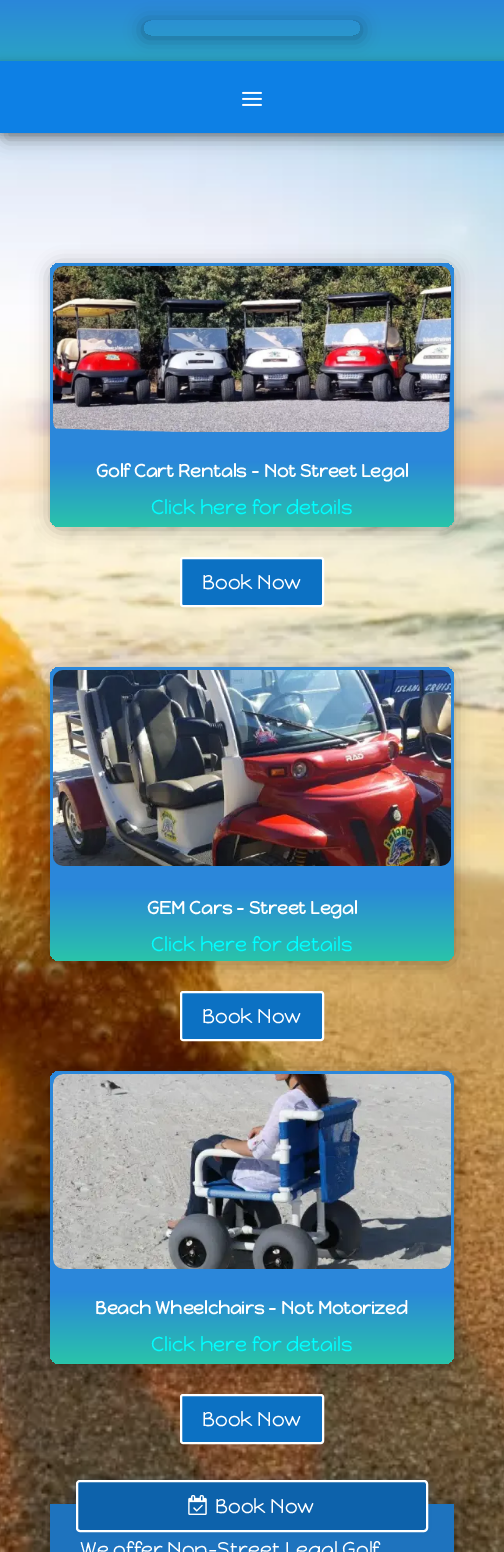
%!PS-Adobe-3.0
%%BoundingBox: 0 0 504 1552
%%LanguageLevel: 3
%%Pages: 1
%%EndComments
%%BeginProlog
/setalpha { dup .setfillconstantalpha .setstrokeconstantalpha } def
/rrect { 5 dict begin { /r /h /w /y /x } { exch def } forall
  x r add y moveto x w add y 2 copy h add r arct x w add y h add x 1 index r arct
  x y h add x y r arct x y 2 copy exch w add exch r arct closepath end } def
/softshadow { 12 dict begin { /a /b /q /h /w /y /x } { exch def } forall gsave /was 0 def
  9 -2 -9 { dup b mul 4 div /e exch def 1 sub .425 mul 2.718 exch exp 1 add a .99 .min exch div /now exch def
    1 1 now sub 1 was sub div sub setalpha /was now def
    w h .min e 2 mul add 0 gt { x e sub y e sub w e 2 mul add h e 2 mul add
      q e add b .6 mul add w h .min 2 div e add .min 0 .max rrect fill } if } for grestore end } def
/drawimage { 5 dict begin { /h /w /y /x /name } { exch def } forall
  gsave x y translate w h scale
  w h 8 [w 0 0 h 0 0] name (r) file false 3 colorimage grestore end } def
%%EndProlog
%%BeginSetup
<< /PageSize [504 1552] /PageUsesTransparency true >> setpagedevice
%%EndSetup
%%Page: 1 1
0 .pushpdf14devicefilter
0 1552 translate 1 -1 scale
4 setmiterlimit
1 setgray
0 0 504 1552 rectfill
(images/2.raw) 0 133 504 1419 drawimage
0 setgray
6 6 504 133 0 9 0.3 softshadow
gsave newpath 0 0 moveto 504 0 lineto 504 61 lineto 0 61 lineto closepath clip newpath
<< /ShadingType 2 /ColorSpace /DeviceRGB /Coords [252 0 252 133] /Extend [true true] /Function << /FunctionType 2 /Domain [0 1] /C0 [0.169 0.529 0.855] /C1 [0.161 0.769 0.663] /N 1 >> >> shfill grestore
gsave
newpath 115 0 moveto 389 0 lineto 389 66 lineto 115 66 lineto closepath 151 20 moveto 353 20 lineto 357.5 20 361 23.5 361 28 curveto 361 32.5 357.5 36 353 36 curveto 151 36 lineto 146.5 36 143 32.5 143 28 curveto 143 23.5 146.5 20 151 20 curveto closepath eoclip newpath
143 22 218 16 8 9 0.3 softshadow
grestore
0 63 504 72 0 5 0.3 softshadow
0.051 0.502 0.898 setrgbcolor
0 61 504 72 rectfill
(images/1.raw) 242 91 20 15 drawimage
0 setgray
50 265 404 264 10 9 0.3 softshadow
gsave 50 263 404 264 10 rrect clip newpath
<< /ShadingType 2 /ColorSpace /DeviceRGB /Coords [252 263 252 527] /Extend [true true] /Function << /FunctionType 3 /Domain [0 1] /Functions [<< /FunctionType 2 /Domain [0 1] /C0 [0.169 0.529 0.855] /C1 [0.169 0.529 0.855] /N 1 >> << /FunctionType 2 /Domain [0 1] /C0 [0.169 0.529 0.855] /C1 [0.161 0.769 0.663] /N 1 >>] /Bounds [0.75] /Encode [0 1 0 1] >> >> shfill grestore
(images/3.raw) 53 266 398 166 drawimage
0.047 0.443 0.765 setrgbcolor
181 558 142 48 2 rrect gsave fill grestore
1 setgray
2 setlinewidth
stroke
0 setgray
50 669 404 294 10 9 0.3 softshadow
gsave 50 667 404 294 10 rrect clip newpath
<< /ShadingType 2 /ColorSpace /DeviceRGB /Coords [252 667 252 961] /Extend [true true] /Function << /FunctionType 3 /Domain [0 1] /Functions [<< /FunctionType 2 /Domain [0 1] /C0 [0.169 0.529 0.855] /C1 [0.169 0.529 0.855] /N 1 >> << /FunctionType 2 /Domain [0 1] /C0 [0.169 0.529 0.855] /C1 [0.161 0.769 0.663] /N 1 >>] /Bounds [0.75] /Encode [0 1 0 1] >> >> shfill grestore
(images/4.raw) 53 670 398 196 drawimage
0.047 0.443 0.765 setrgbcolor
181 992 142 48 2 rrect gsave fill grestore
1 setgray
stroke
0 setgray
50 1073 404 293 10 9 0.3 softshadow
gsave 50 1071 404 293 10 rrect clip newpath
<< /ShadingType 2 /ColorSpace /DeviceRGB /Coords [252 1071 252 1364] /Extend [true true] /Function << /FunctionType 3 /Domain [0 1] /Functions [<< /FunctionType 2 /Domain [0 1] /C0 [0.169 0.529 0.855] /C1 [0.169 0.529 0.855] /N 1 >> << /FunctionType 2 /Domain [0 1] /C0 [0.169 0.529 0.855] /C1 [0.161 0.769 0.663] /N 1 >>] /Bounds [0.75] /Encode [0 1 0 1] >> >> shfill grestore
(images/5.raw) 53 1074 398 195 drawimage
0.047 0.443 0.765 setrgbcolor
181 1395 142 48 2 rrect gsave fill grestore
1 setgray
stroke
0 setgray
49 1505 406 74 0 9 0.3 softshadow
0.118 0.451 0.745 setrgbcolor
50 1504 404 48 rectfill
0.051 0.384 0.671 setrgbcolor
76 1482 352 52 4 5 0.3 softshadow
77 1481 350 50 3 rrect gsave fill grestore
1 setgray
stroke
(images/6.raw) 188 1495 19 20 drawimage
/HappyMonkey-Bold [18 0 0 -18 0 0] selectfont
96 477 moveto (Golf Cart Rentals - Not Street Legal) show
/HappyMonkey-Regular [20 0 0 -20 0 0] selectfont
0 1 1 setrgbcolor
151 514 moveto (Click here for details) show
1 setgray
202 589 moveto (Book Now) show
/HappyMonkey-Bold [18 0 0 -18 0 0] selectfont
147 914 moveto (GEM Cars - Street Legal) show
/HappyMonkey-Regular [20 0 0 -20 0 0] selectfont
0 1 1 setrgbcolor
151 951 moveto (Click here for details) show
1 setgray
202 1023 moveto (Book Now) show
/HappyMonkey-Bold [18 0 0 -18 0 0] selectfont
95 1314 moveto (Beach Wheelchairs - Not Motorized) show
/HappyMonkey-Regular [20 0 0 -20 0 0] selectfont
0 1 1 setrgbcolor
151 1351 moveto (Click here for details) show
1 setgray
202 1426 moveto (Book Now) show
80 1556 moveto (We offer Non-Street Legal Golf) show
215 1513 moveto (Book Now) show
.poppdf14devicefilter showpage
%%EOF
